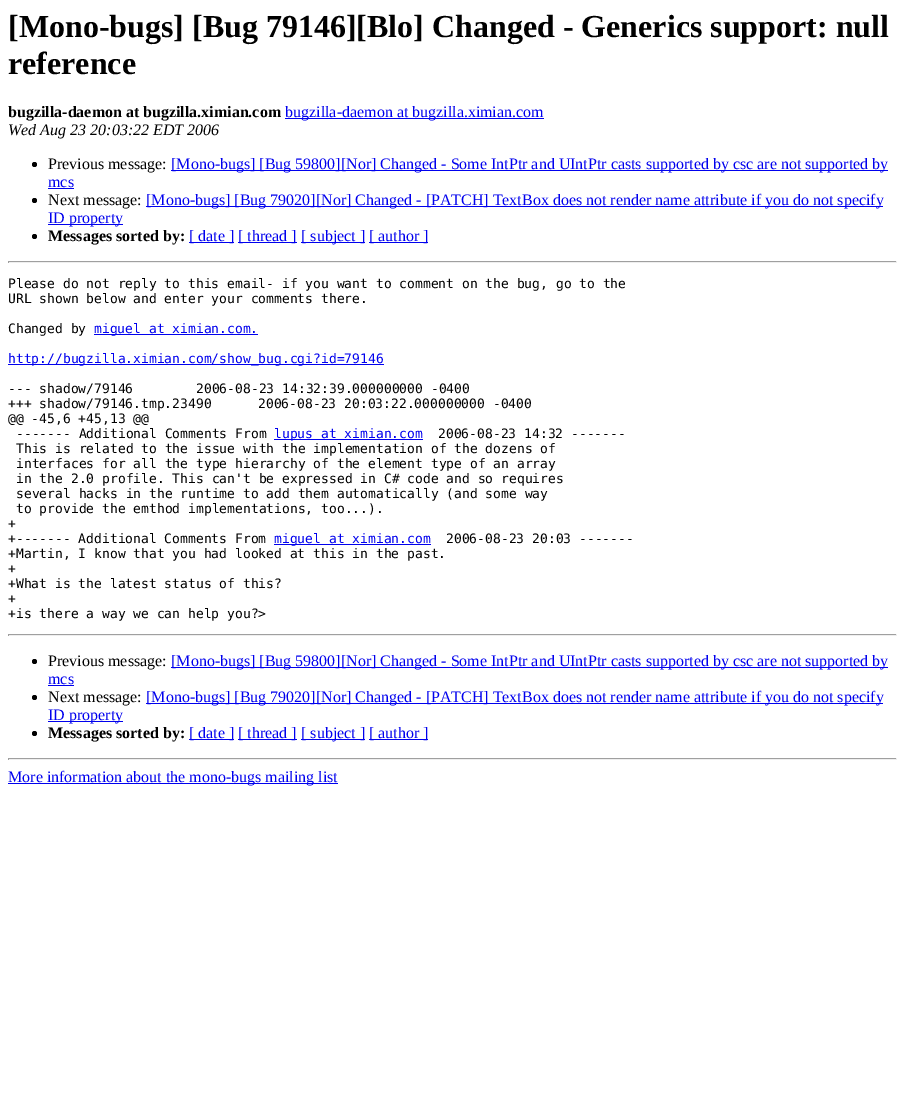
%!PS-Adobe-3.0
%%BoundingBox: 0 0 905 1113
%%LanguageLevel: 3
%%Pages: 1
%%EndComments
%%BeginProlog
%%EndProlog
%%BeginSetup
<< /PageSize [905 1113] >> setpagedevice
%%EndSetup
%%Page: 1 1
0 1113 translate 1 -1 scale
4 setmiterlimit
1 setgray
0 0 905 1113 rectfill
0 0 0.933 setrgbcolor
285 118 259 1 rectfill
0 setgray
newpath 34.5 164.5 2.5 0 360 arc closepath fill
0 0 0.933 setrgbcolor
171 170 717 1 rectfill
48 188 26 1 rectfill
0 setgray
newpath 34.5 200.5 2.5 0 360 arc closepath fill
0 0 0.933 setrgbcolor
146 206 737 1 rectfill
48 224 75 1 rectfill
0 setgray
newpath 34.5 236.5 2.5 0 360 arc closepath fill
0 0 0.933 setrgbcolor
189 242 45 1 rectfill
238 242 59 1 rectfill
301 242 64 1 rectfill
369 242 59 1 rectfill
0.624 setgray
8 261 889 1 rectfill
0.933 setgray
896 261 1 2 rectfill
8 262 889 1 rectfill
0.624 setgray
8 261 1 2 rectfill
0 0 0.933 setrgbcolor
94 334 164 1 rectfill
8 364 376 1 rectfill
274 439 149 1 rectfill
274 544 157 1 rectfill
0.624 setgray
8 634 889 1 rectfill
0.933 setgray
896 634 1 2 rectfill
8 635 889 1 rectfill
0.624 setgray
8 634 1 2 rectfill
0 setgray
newpath 34.5 661.5 2.5 0 360 arc closepath fill
0 0 0.933 setrgbcolor
171 667 717 1 rectfill
48 685 26 1 rectfill
0 setgray
newpath 34.5 697.5 2.5 0 360 arc closepath fill
0 0 0.933 setrgbcolor
146 703 737 1 rectfill
48 721 75 1 rectfill
0 setgray
newpath 34.5 733.5 2.5 0 360 arc closepath fill
0 0 0.933 setrgbcolor
189 739 45 1 rectfill
238 739 59 1 rectfill
301 739 64 1 rectfill
369 739 59 1 rectfill
0.624 setgray
8 758 889 1 rectfill
0.933 setgray
896 758 1 2 rectfill
8 759 889 1 rectfill
0.624 setgray
8 758 1 2 rectfill
0 0 0.933 setrgbcolor
8 783 330 1 rectfill
/LiberationSerif-Bold [32 0 0 -32 0 0] selectfont
0 setgray
8 37 moveto ([Mono-bugs] [Bug 79146][Blo] Changed - Generics support: null) show
8 74 moveto (reference) show
/LiberationSerif-Bold [16 0 0 -16 0 0] selectfont
8 117 moveto (bugzilla-daemon at bugzilla.ximian.com) show
/LiberationSerif-Regular [16 0 0 -16 0 0] selectfont
0 0 0.933 setrgbcolor
285 117 moveto (bugzilla-daemon at bugzilla.ximian.com) show
/LiberationSerif-Italic [16 0 0 -16 0 0] selectfont
0 setgray
8 135 moveto (Wed Aug 23 20:03:22 EDT 2006) show
/LiberationSerif-Regular [16 0 0 -16 0 0] selectfont
48 169 moveto (Previous message:) show
0 0 0.933 setrgbcolor
171 169 moveto ([Mono-bugs] [Bug 59800][Nor] Changed - Some IntPtr and UIntPtr casts supported by csc are not supported by) show
48 187 moveto (mcs) show
0 setgray
48 205 moveto (Next message:) show
0 0 0.933 setrgbcolor
146 205 moveto ([Mono-bugs] [Bug 79020][Nor] Changed - [PATCH] TextBox does not render name attribute if you do not specify) show
48 223 moveto (ID property) show
/LiberationSerif-Bold [16 0 0 -16 0 0] selectfont
0 setgray
48 241 moveto (Messages sorted by:) show
/LiberationSerif-Regular [16 0 0 -16 0 0] selectfont
0 0 0.933 setrgbcolor
189 241 moveto ([ date ]) show
238 241 moveto ([ thread ]) show
301 241 moveto ([ subject ]) show
369 241 moveto ([ author ]) show
/DejaVuSansMono-Regular [13 0 0 -13 0 0] selectfont
0 setgray
8 288 moveto (Please do not reply to this email- if you want to comment on the bug, go to the) show
8 303 moveto (URL shown below and enter your comments there.) show
8 333 moveto (Changed by) show
0 0 0.933 setrgbcolor
94 333 moveto (miguel at ximian.com.) show
8 363 moveto (http://bugzilla.ximian.com/show_bug.cgi?id=79146) show
0 setgray
8 393 moveto (--- shadow/79146) show
196 393 moveto (2006-08-23 14:32:39.000000000 -0400) show
8 408 moveto (+++ shadow/79146.tmp.23490) show
258 408 moveto (2006-08-23 20:03:22.000000000 -0400) show
8 423 moveto (@@ -45,6 +45,13 @@) show
16 438 moveto (------- Additional Comments From) show
0 0 0.933 setrgbcolor
274 438 moveto (lupus at ximian.com) show
0 setgray
438 438 moveto (2006-08-23 14:32 -------) show
16 453 moveto (This is related to the issue with the implementation of the dozens of) show
16 468 moveto (interfaces for all the type hierarchy of the element type of an array) show
16 483 moveto (in the 2.0 profile. This can't be expressed in C# code and so requires) show
16 498 moveto (several hacks in the runtime to add them automatically \(and some way) show
16 513 moveto (to provide the emthod implementations, too...\).) show
8 528 moveto (+) show
8 543 moveto (+------- Additional Comments From) show
0 0 0.933 setrgbcolor
274 543 moveto (miguel at ximian.com) show
0 setgray
446 543 moveto (2006-08-23 20:03 -------) show
8 558 moveto (+Martin, I know that you had looked at this in the past.) show
8 573 moveto (+) show
8 588 moveto (+What is the latest status of this?) show
8 603 moveto (+) show
8 618 moveto (+is there a way we can help you?>) show
/LiberationSerif-Regular [16 0 0 -16 0 0] selectfont
48 666 moveto (Previous message:) show
0 0 0.933 setrgbcolor
171 666 moveto ([Mono-bugs] [Bug 59800][Nor] Changed - Some IntPtr and UIntPtr casts supported by csc are not supported by) show
48 684 moveto (mcs) show
0 setgray
48 702 moveto (Next message:) show
0 0 0.933 setrgbcolor
146 702 moveto ([Mono-bugs] [Bug 79020][Nor] Changed - [PATCH] TextBox does not render name attribute if you do not specify) show
48 720 moveto (ID property) show
/LiberationSerif-Bold [16 0 0 -16 0 0] selectfont
0 setgray
48 738 moveto (Messages sorted by:) show
/LiberationSerif-Regular [16 0 0 -16 0 0] selectfont
0 0 0.933 setrgbcolor
189 738 moveto ([ date ]) show
238 738 moveto ([ thread ]) show
301 738 moveto ([ subject ]) show
369 738 moveto ([ author ]) show
8 782 moveto (More information about the mono-bugs mailing list) show
showpage
%%EOF
